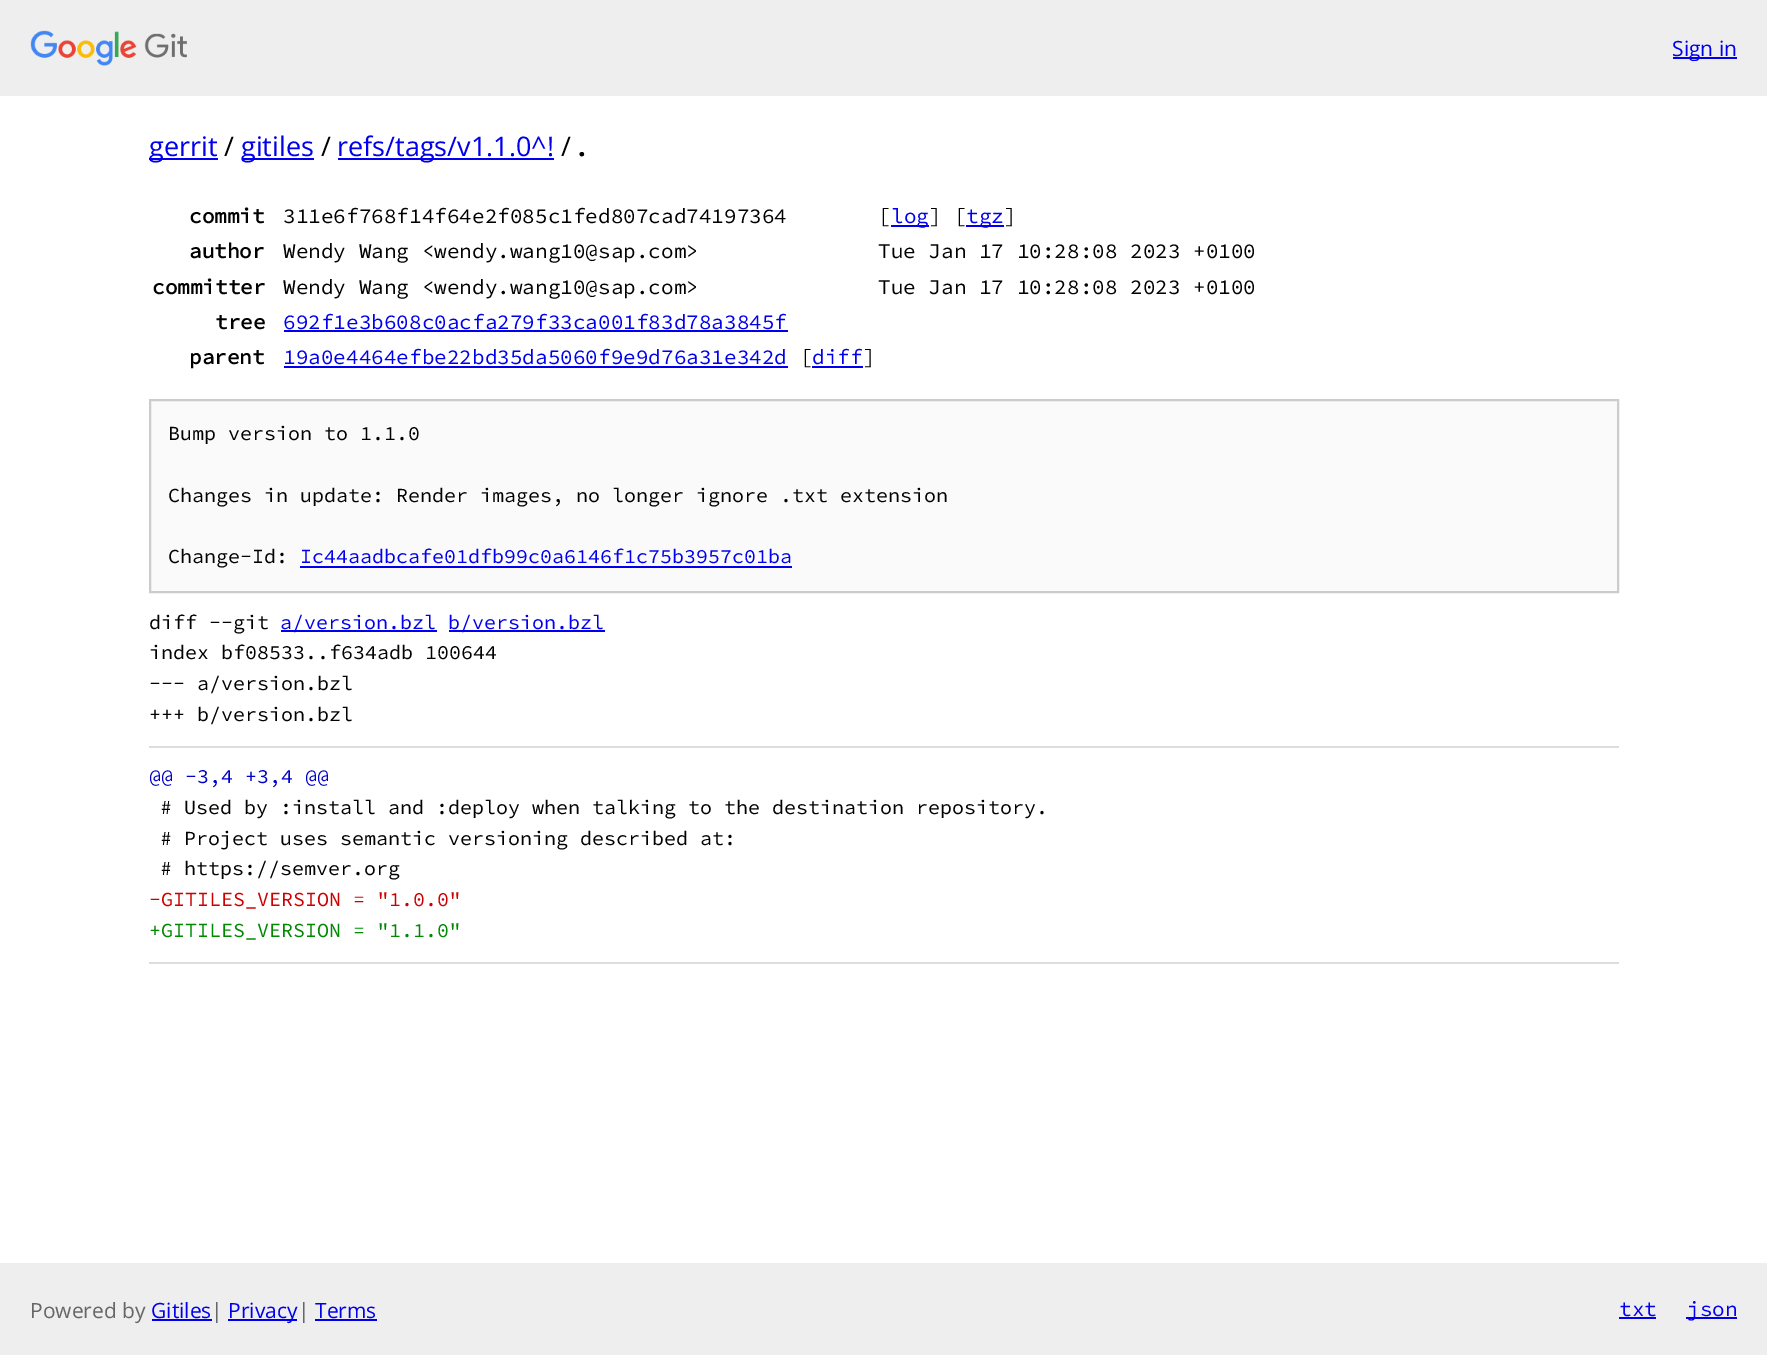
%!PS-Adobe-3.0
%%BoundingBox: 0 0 1767 1355
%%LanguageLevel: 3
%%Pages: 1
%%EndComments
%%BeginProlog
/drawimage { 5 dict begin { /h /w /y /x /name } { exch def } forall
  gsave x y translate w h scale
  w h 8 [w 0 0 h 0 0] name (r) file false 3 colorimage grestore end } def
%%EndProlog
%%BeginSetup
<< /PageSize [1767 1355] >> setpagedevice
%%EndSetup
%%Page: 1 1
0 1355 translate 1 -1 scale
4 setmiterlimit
1 setgray
0 0 1767 1355 rectfill
0.933 setgray
0 0 1767 96 rectfill
(images/1.raw) 30 30 157 36 drawimage
0 0 0.933 setrgbcolor
1673 57 64 2 rectfill
149 158 69 2 rectfill
242 158 72 2 rectfill
338 158 216 2 rectfill
891 225 38 2 rectfill
966 225 38 2 rectfill
284 330 504 2 rectfill
284 366 504 2 rectfill
812 366 51 2 rectfill
0.98 setgray
newpath 150 400 moveto 1618 400 lineto 1618 592 lineto 150 592 lineto closepath gsave fill grestore
0.8 setgray
2 setlinewidth
stroke
0 0 0.933 setrgbcolor
300 566 492 2 rectfill
281 630 156 2 rectfill
449 630 156 2 rectfill
0.867 setgray
149 746 1470 2 rectfill
149 962 1470 2 rectfill
0.933 setgray
0 1263 1767 92 rectfill
0 0 0.933 setrgbcolor
152 1319 60 2 rectfill
228 1319 69 2 rectfill
315 1319 62 2 rectfill
1619 1317 37 2 rectfill
1686 1317 51 2 rectfill
/OpenSans-Regular [21 0 0 -21 0 0] selectfont
1672 56 moveto (Sign in) show
/OpenSans-Regular [27 0 0 -27 0 0] selectfont
149 156 moveto (gerrit) show
0 setgray
224 156 moveto (/) show
0 0 0.933 setrgbcolor
241 156 moveto (gitiles) show
0 setgray
321 156 moveto (/) show
0 0 0.933 setrgbcolor
337 156 moveto (refs/tags/v1.1.0^!) show
0 setgray
561 156 moveto (/) show
/OpenSans-Bold [27 0 0 -27 0 0] selectfont
578 156 moveto (.) show
/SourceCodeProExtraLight-Bold [21 0 0 -21 0 0] selectfont
189 223 moveto (commit) show
/SourceCodeProExtraLight-ExtraLight [21 0 0 -21 0 0] selectfont
283 223 moveto (311e6f768f14f64e2f085c1fed807cad74197364) show
878 223 moveto ([) show
0 0 0.933 setrgbcolor
891 223 moveto (log) show
0 setgray
929 223 moveto (] [) show
0 0 0.933 setrgbcolor
966 223 moveto (tgz) show
0 setgray
1004 223 moveto (]) show
/SourceCodeProExtraLight-Bold [21 0 0 -21 0 0] selectfont
189 258 moveto (author) show
/SourceCodeProExtraLight-ExtraLight [21 0 0 -21 0 0] selectfont
283 258 moveto (Wendy Wang <wendy.wang10@sap.com>) show
878 258 moveto (Tue Jan 17 10:28:08 2023 +0100) show
/SourceCodeProExtraLight-Bold [21 0 0 -21 0 0] selectfont
152 294 moveto (committer) show
/SourceCodeProExtraLight-ExtraLight [21 0 0 -21 0 0] selectfont
283 294 moveto (Wendy Wang <wendy.wang10@sap.com>) show
878 294 moveto (Tue Jan 17 10:28:08 2023 +0100) show
/SourceCodeProExtraLight-Bold [21 0 0 -21 0 0] selectfont
215 329 moveto (tree) show
/SourceCodeProExtraLight-ExtraLight [21 0 0 -21 0 0] selectfont
0 0 0.933 setrgbcolor
283 329 moveto (692f1e3b608c0acfa279f33ca001f83d78a3845f) show
/SourceCodeProExtraLight-Bold [21 0 0 -21 0 0] selectfont
0 setgray
189 364 moveto (parent) show
/SourceCodeProExtraLight-ExtraLight [21 0 0 -21 0 0] selectfont
0 0 0.933 setrgbcolor
283 364 moveto (19a0e4464efbe22bd35da5060f9e9d76a31e342d) show
0 setgray
800 364 moveto ([) show
0 0 0.933 setrgbcolor
812 364 moveto (diff) show
0 setgray
863 364 moveto (]) show
/SourceCodeProExtraLight-ExtraLight [20 0 0 -20 0 0] selectfont
168 440 moveto (Bump version to 1.1.0) show
168 502 moveto (Changes in update: Render images, no longer ignore .txt extension) show
168 563 moveto (Change-Id:) show
0 0 0.933 setrgbcolor
300 563 moveto (Ic44aadbcafe01dfb99c0a6146f1c75b3957c01ba) show
0 setgray
149 629 moveto (diff --git) show
0 0 0.933 setrgbcolor
280 629 moveto (a/version.bzl) show
448 629 moveto (b/version.bzl) show
0 setgray
149 659 moveto (index bf08533..f634adb 100644) show
149 690 moveto (--- a/version.bzl) show
149 721 moveto (+++ b/version.bzl) show
0 0 0.8 setrgbcolor
149 783 moveto (@@ -3,4 +3,4 @@) show
0 setgray
160 814 moveto (# Used by :install and :deploy when talking to the destination repository.) show
160 845 moveto (# Project uses semantic versioning described at:) show
160 875 moveto (# https://semver.org) show
0.8 0 0 setrgbcolor
149 906 moveto (-GITILES_VERSION = "1.0.0") show
0 0.533 0 setrgbcolor
149 937 moveto (+GITILES_VERSION = "1.1.0") show
/OpenSans-Regular [21 0 0 -21 0 0] selectfont
0.4 setgray
30 1318 moveto (Powered by) show
0 0 0.933 setrgbcolor
151 1318 moveto (Gitiles) show
0.4 setgray
211 1318 moveto (|) show
0 0 0.933 setrgbcolor
228 1318 moveto (Privacy) show
0.4 setgray
298 1318 moveto (|) show
0 0 0.933 setrgbcolor
315 1318 moveto (Terms) show
/SourceCodeProExtraLight-ExtraLight [21 0 0 -21 0 0] selectfont
1619 1316 moveto (txt) show
1687 1316 moveto (json) show
showpage
%%EOF
